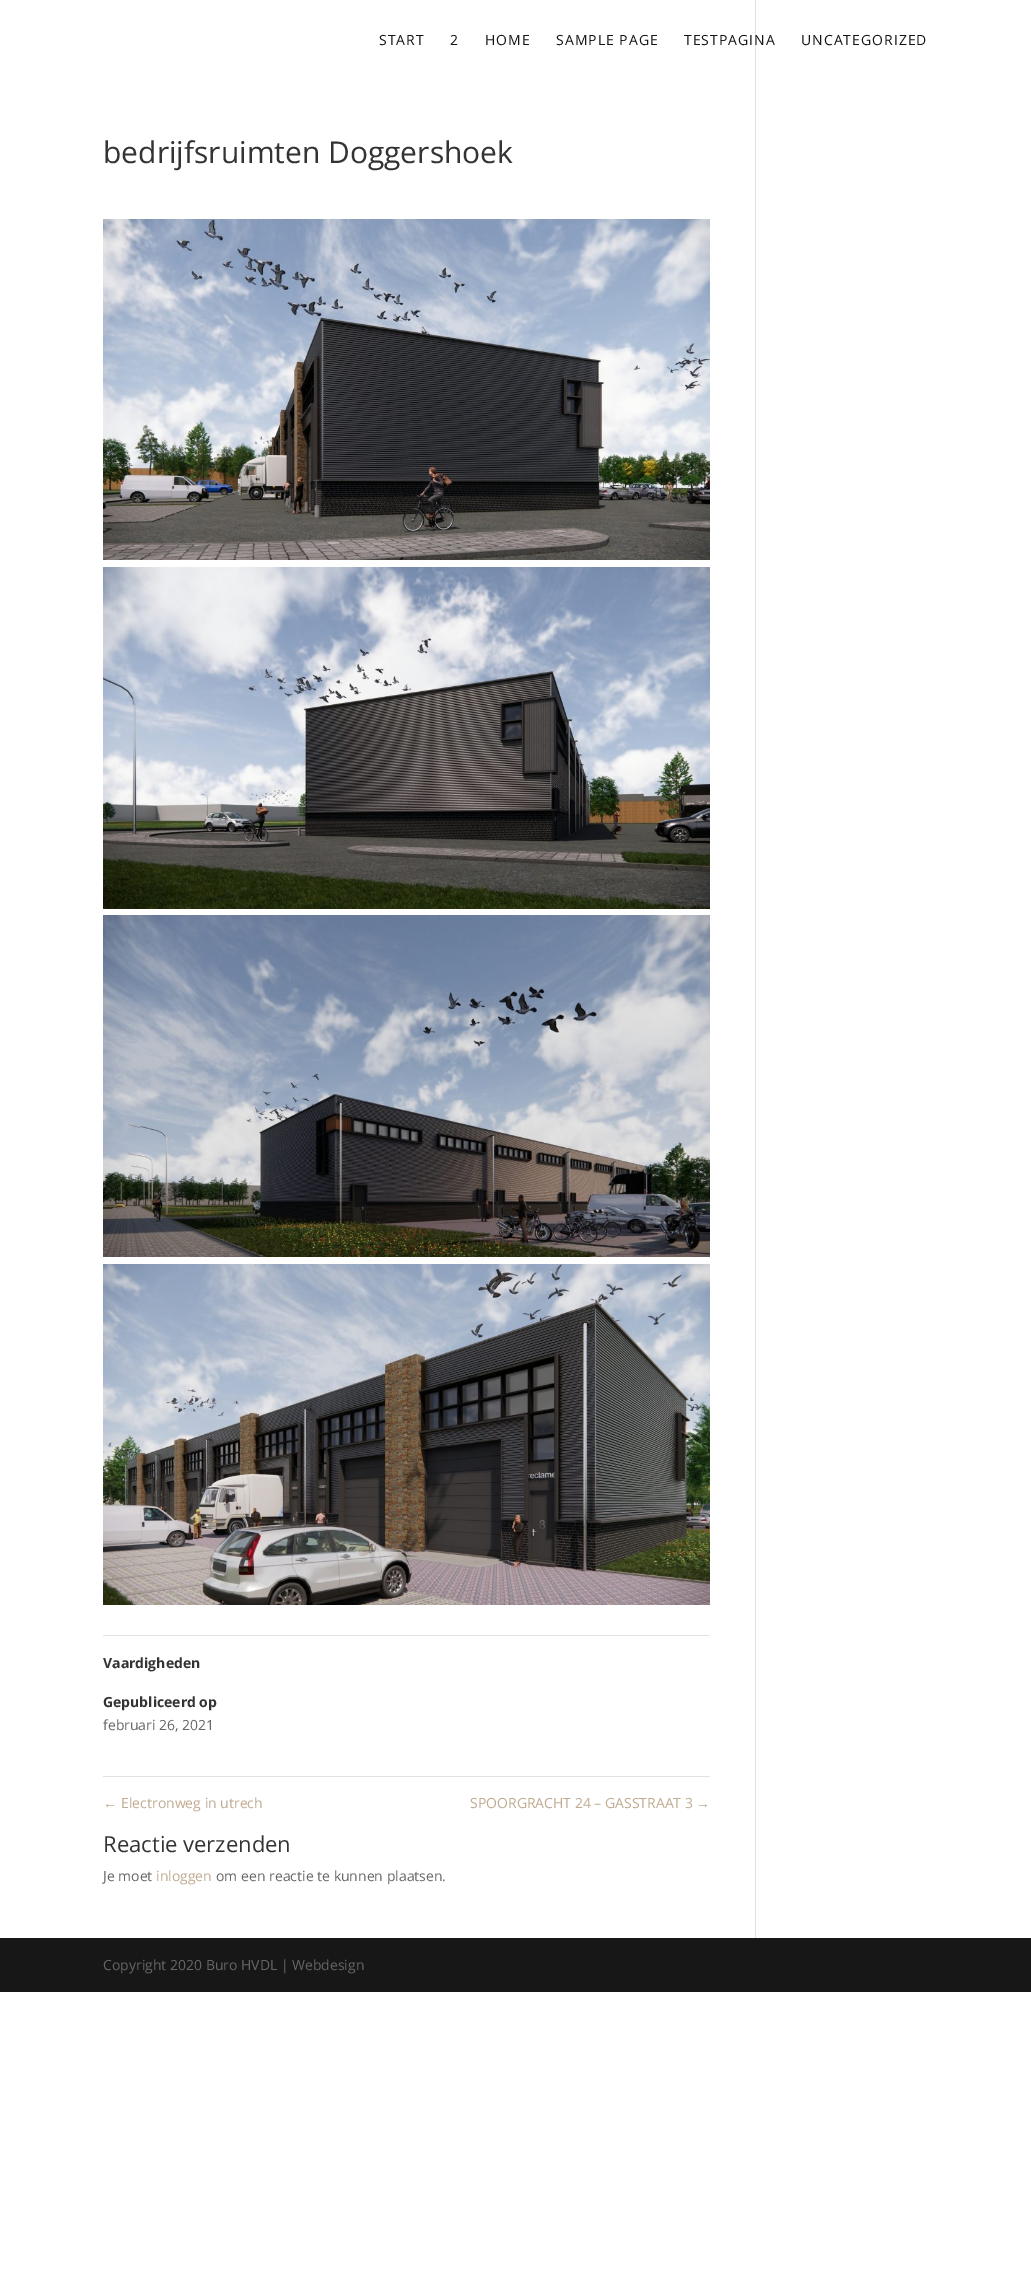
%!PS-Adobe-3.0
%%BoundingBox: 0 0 1031 2278
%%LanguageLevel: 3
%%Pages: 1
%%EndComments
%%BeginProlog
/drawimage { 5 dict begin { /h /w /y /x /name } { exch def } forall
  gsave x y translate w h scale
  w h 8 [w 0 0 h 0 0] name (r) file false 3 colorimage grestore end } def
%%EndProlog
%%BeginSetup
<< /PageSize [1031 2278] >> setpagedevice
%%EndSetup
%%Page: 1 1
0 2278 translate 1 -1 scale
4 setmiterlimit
1 setgray
0 0 1031 2278 rectfill
(images/1.raw) 103 219 607 341 drawimage
(images/2.raw) 103 567 607 342 drawimage
(images/3.raw) 103 915 607 342 drawimage
(images/4.raw) 103 1264 607 341 drawimage
0.886 setgray
103 1635 607 1 rectfill
103 1776 607 1 rectfill
755 0 1 1938 rectfill
0.09 setgray
0 1938 1031 54 rectfill
/OpenSans-Regular [14 0 0 -14 0 0] selectfont
0.078 setgray
379 45 moveto 1 0 (START) ashow
450 45 moveto 1 0 (2) ashow
485 45 moveto 1 0 (HOME) ashow
556 45 moveto 1 0 (SAMPLE PAGE) ashow
684 45 moveto 1 0 (TESTPAGINA) ashow
801 45 moveto 1 0 (UNCATEGORIZED) ashow
/OpenSans-Regular [30 0 0 -30 0 0] selectfont
0.2 setgray
103 163 moveto (bedrijfsruimten Doggershoek) show
/OpenSans-Bold [14 0 0 -14 0 0] selectfont
103 1668 moveto (Vaardigheden) show
103 1707 moveto (Gepubliceerd op) show
/OpenSans-Regular [14 0 0 -14 0 0] selectfont
0.4 setgray
103 1730 moveto (februari 26, 2021) show
/LiberationSans-Regular [14 0 0 -14 0 0] selectfont
0.753 0.667 0.569 setrgbcolor
103 1808 moveto (←) show
/OpenSans-Regular [14 0 0 -14 0 0] selectfont
121 1808 moveto (Electronweg in utrech) show
470 1808 moveto (SPOORGRACHT 24 – GASSTRAAT 3) show
/LiberationSans-Regular [14 0 0 -14 0 0] selectfont
696 1808 moveto (→) show
/OpenSans-Regular [22 0 0 -22 0 0] selectfont
0.2 setgray
103 1852 moveto (Reactie verzenden) show
/OpenSans-Regular [14 0 0 -14 0 0] selectfont
0.4 setgray
103 1881 moveto (Je moet) show
0.753 0.667 0.569 setrgbcolor
156 1881 moveto (inloggen) show
0.4 setgray
216 1881 moveto (om een reactie te kunnen plaatsen.) show
103 1970 moveto (Copyright 2020 Buro HVDL | Webdesign) show
showpage
%%EOF
